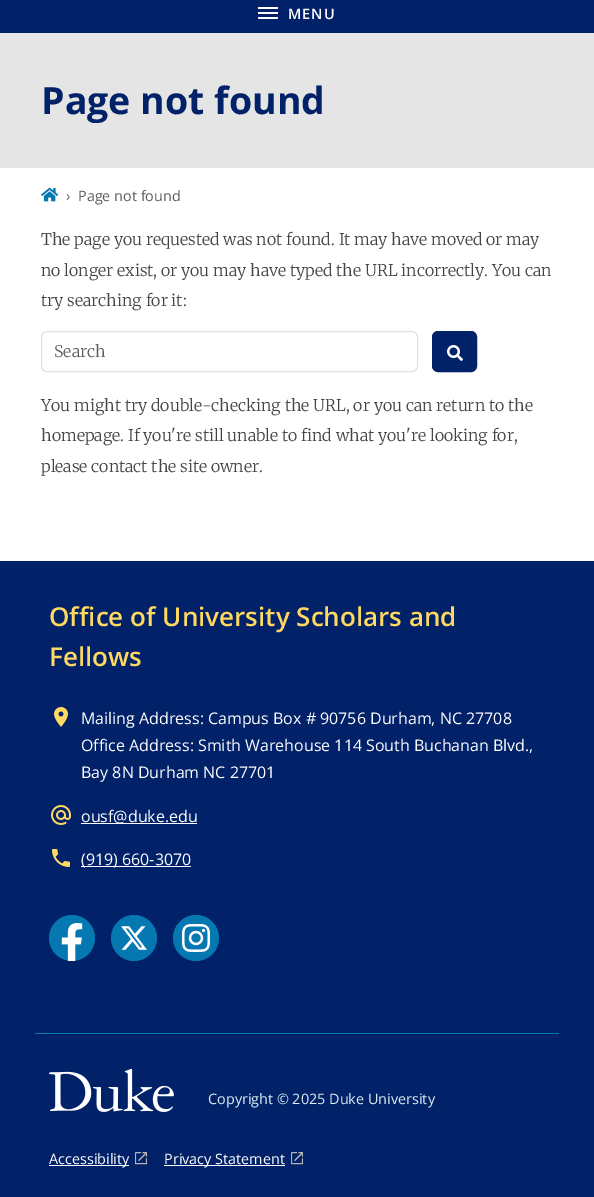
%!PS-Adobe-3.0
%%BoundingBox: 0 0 594 1197
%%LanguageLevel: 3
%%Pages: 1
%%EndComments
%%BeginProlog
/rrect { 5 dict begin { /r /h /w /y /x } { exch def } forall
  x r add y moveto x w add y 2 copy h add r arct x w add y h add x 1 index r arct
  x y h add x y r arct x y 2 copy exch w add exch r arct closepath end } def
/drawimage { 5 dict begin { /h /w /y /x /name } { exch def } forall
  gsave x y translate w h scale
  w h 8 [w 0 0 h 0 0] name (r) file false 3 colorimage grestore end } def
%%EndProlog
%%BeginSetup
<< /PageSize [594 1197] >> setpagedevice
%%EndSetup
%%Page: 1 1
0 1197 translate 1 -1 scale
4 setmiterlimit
1 setgray
0 0 594 1197 rectfill
0.004 0.129 0.412 setrgbcolor
0 0 594 33 rectfill
1 setgray
258 12 20 2 1 rrect fill
258 7 20 2 1 rrect fill
258 17 20 2 1 rrect fill
0.898 setgray
0 33 594 135 rectfill
(images/1.raw) 41 187 17 15 drawimage
0.871 0.886 0.902 setrgbcolor
41.5 331.5 376 40 5.5 rrect stroke
0.004 0.129 0.412 setrgbcolor
432.5 331.5 44 40 5.5 rrect gsave fill grestore
stroke
(images/2.raw) 447 345 16 16 drawimage
0 561 594 636 rectfill
(images/3.raw) 54 707 14 20 drawimage
(images/4.raw) 51 805 20 20 drawimage
1 setgray
81 823 116 1 rectfill
(images/5.raw) 52 849 18 18 drawimage
81 866 110 1 rectfill
0.02 0.467 0.694 setrgbcolor
newpath 72 938 23 0 360 arc closepath fill
(images/6.raw) 61 923 22 38 drawimage
newpath 134 938 23 0 360 arc closepath fill
(images/7.raw) 121 926 26 24 drawimage
newpath 196 938 23 0 360 arc closepath fill
(images/8.raw) 182 924 28 28 drawimage
35 1033 524 1 rectfill
(images/9.raw) 49 1069 125 43 drawimage
1 setgray
49 1165 80 1 rectfill
(images/10.raw) 135 1152 12 13 drawimage
164 1165 121 1 rectfill
(images/11.raw) 291 1152 12 13 drawimage
/OpenSans-SemiBold [14.4 0 0 -14.4 0 0] selectfont
288 19 moveto 1 0 (MENU) ashow
/OpenSans-Bold [37.5 0 0 -37.5 0 0] selectfont
0.004 0.129 0.412 setrgbcolor
41 114 moveto (Page not found) show
/OpenSans-Regular [14.4 0 0 -14.4 0 0] selectfont
0.349 0.361 0.373 setrgbcolor
66 201 moveto (›) show
78 201 moveto (Page not found) show
/Merriweather-Light [16 0 0 -16 0 0] selectfont
0.275 0.263 0.263 setrgbcolor
41 245 moveto (The page you requested was not found. It may have moved or may) show
41 276 moveto (no longer exist, or you may have typed the URL incorrectly. You can) show
41 306 moveto (try searching for it:) show
0.349 0.361 0.373 setrgbcolor
54 357 moveto (Search) show
0.275 0.263 0.263 setrgbcolor
41 411 moveto (You might try double-checking the URL, or you can return to the) show
41 441 moveto (homepage. If you're still unable to find what you're looking for,) show
41 472 moveto (please contact the site owner.) show
/OpenSans-SemiBold [26 0 0 -26 0 0] selectfont
1 0.851 0.376 setrgbcolor
49 626 moveto (Office of University Scholars and) show
49 666 moveto (Fellows) show
/OpenSans-Regular [16 0 0 -16 0 0] selectfont
1 setgray
81 724 moveto (Mailing Address: Campus Box # 90756 Durham, NC 27708) show
81 751 moveto (Office Address: Smith Warehouse 114 South Buchanan Blvd.,) show
81 778 moveto (Bay 8N Durham NC 27701) show
81 822 moveto (ousf@duke.edu) show
81 865 moveto (\(919\) 660-3070) show
/OpenSans-Regular [14.4 0 0 -14.4 0 0] selectfont
0.859 0.929 0.949 setrgbcolor
208 1104 moveto (Copyright © 2025 Duke University) show
1 setgray
49 1164 moveto (Accessibility) show
164 1164 moveto (Privacy Statement) show
showpage
%%EOF
